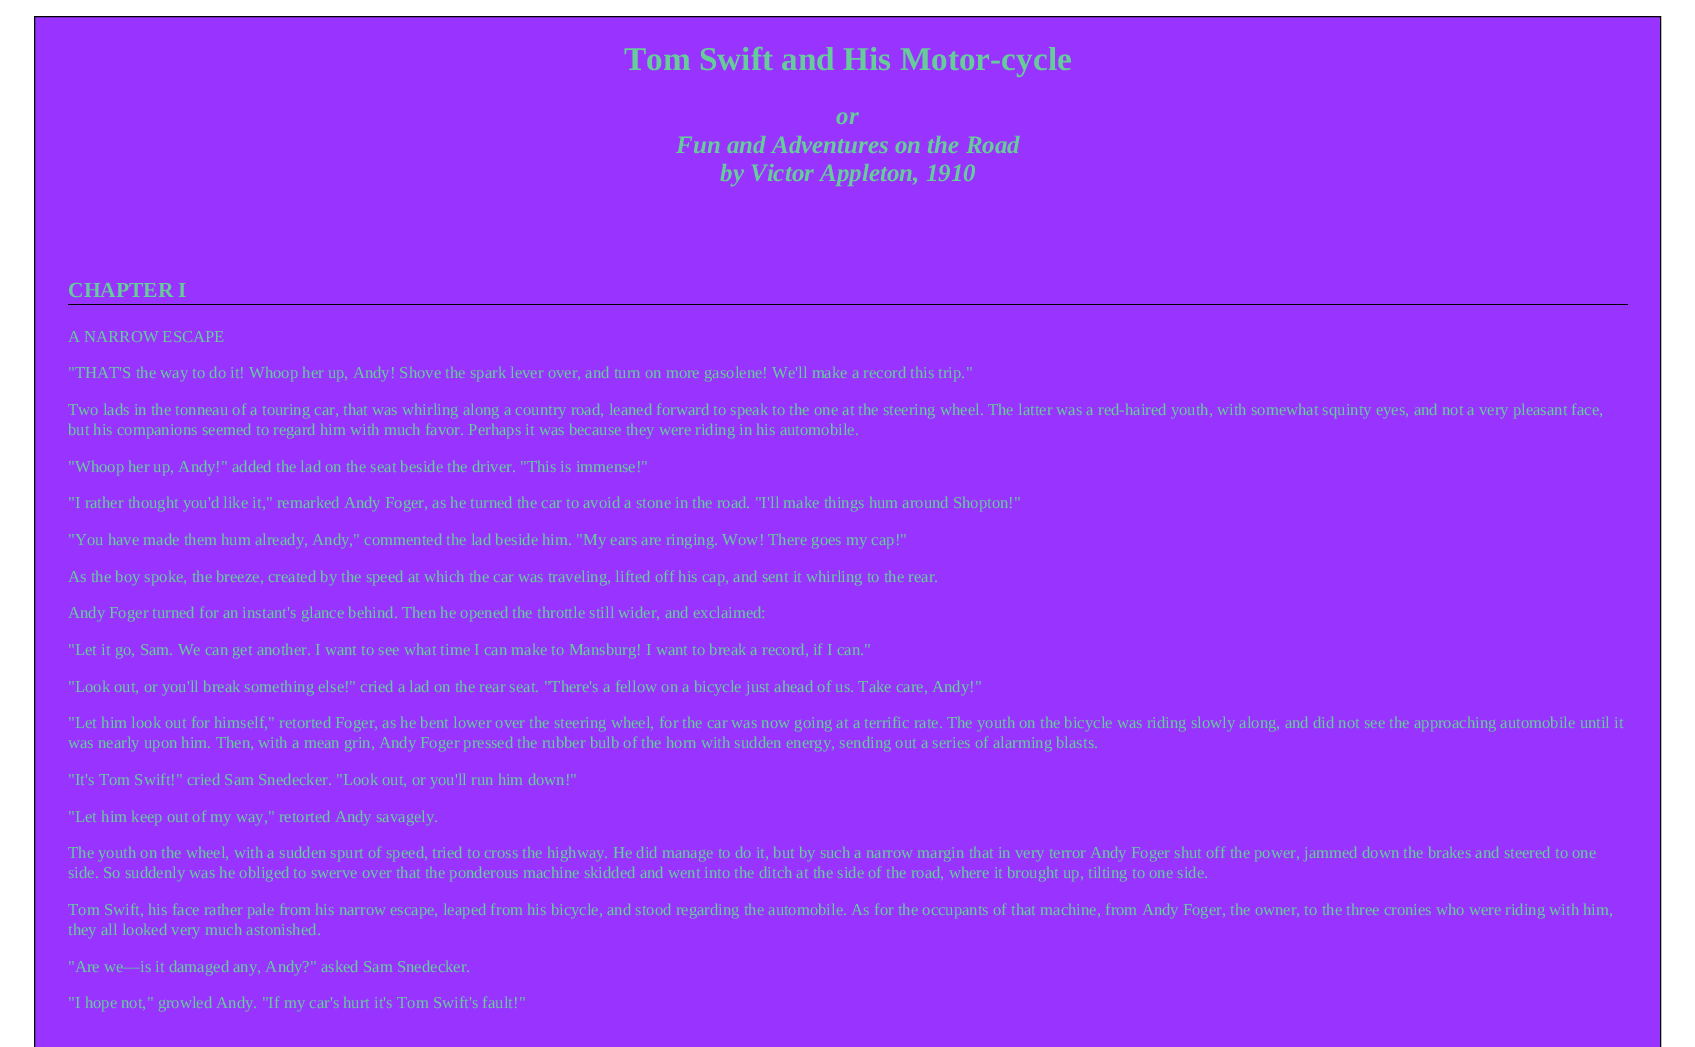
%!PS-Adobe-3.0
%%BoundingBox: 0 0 1695 1047
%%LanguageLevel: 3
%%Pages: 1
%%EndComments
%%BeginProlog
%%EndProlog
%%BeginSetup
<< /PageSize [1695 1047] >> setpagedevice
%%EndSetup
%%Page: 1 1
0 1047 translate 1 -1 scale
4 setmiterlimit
1 setgray
0 0 1695 1047 rectfill
0.6 0.2 1 setrgbcolor
newpath 34.5 16.5 moveto 1660.5 16.5 lineto 1660.5 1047.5 lineto 34.5 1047.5 lineto closepath gsave fill grestore
0 setgray
stroke
68 304 1560 1 rectfill
/LiberationSerif-Bold [33.3 0 0 -33.3 0 0] selectfont
0.4 0.8 0.6 setrgbcolor
624 70 moveto (Tom Swift and His Motor-cycle) show
/LiberationSerif-BoldItalic [25 0 0 -25 0 0] selectfont
836 124 moveto (or) show
676 153 moveto (Fun and Adventures on the Road) show
720 181 moveto (by Victor Appleton, 1910) show
/LiberationSerif-Bold [21.5 0 0 -21.5 0 0] selectfont
68 297 moveto (CHAPTER I) show
/LiberationSerif-Regular [16.67 0 0 -16.67 0 0] selectfont
68 342 moveto (A NARROW ESCAPE) show
68 378 moveto ("THAT'S the way to do it! Whoop her up, Andy! Shove the spark lever over, and turn on more gasolene! We'll make a record this trip.") show
68 415 moveto (Two lads in the tonneau of a touring car, that was whirling along a country road, leaned forward to speak to the one at the steering wheel. The latter was a red-haired youth, with somewhat squinty eyes, and not a very pleasant face,) show
68 435 moveto (but his companions seemed to regard him with much favor. Perhaps it was because they were riding in his automobile.) show
68 472 moveto ("Whoop her up, Andy!" added the lad on the seat beside the driver. "This is immense!") show
68 508 moveto ("I rather thought you'd like it," remarked Andy Foger, as he turned the car to avoid a stone in the road. "I'll make things hum around Shopton!") show
68 545 moveto ("You have made them hum already, Andy," commented the lad beside him. "My ears are ringing. Wow! There goes my cap!") show
68 582 moveto (As the boy spoke, the breeze, created by the speed at which the car was traveling, lifted off his cap, and sent it whirling to the rear.) show
68 618 moveto (Andy Foger turned for an instant's glance behind. Then he opened the throttle still wider, and exclaimed:) show
68 655 moveto ("Let it go, Sam. We can get another. I want to see what time I can make to Mansburg! I want to break a record, if I can.") show
68 692 moveto ("Look out, or you'll break something else!" cried a lad on the rear seat. "There's a fellow on a bicycle just ahead of us. Take care, Andy!") show
68 728 moveto ("Let him look out for himself," retorted Foger, as he bent lower over the steering wheel, for the car was now going at a terrific rate. The youth on the bicycle was riding slowly along, and did not see the approaching automobile until it) show
68 748 moveto (was nearly upon him. Then, with a mean grin, Andy Foger pressed the rubber bulb of the horn with sudden energy, sending out a series of alarming blasts.) show
68 785 moveto ("It's Tom Swift!" cried Sam Snedecker. "Look out, or you'll run him down!") show
68 822 moveto ("Let him keep out of my way," retorted Andy savagely.) show
68 858 moveto (The youth on the wheel, with a sudden spurt of speed, tried to cross the highway. He did manage to do it, but by such a narrow margin that in very terror Andy Foger shut off the power, jammed down the brakes and steered to one) show
68 878 moveto (side. So suddenly was he obliged to swerve over that the ponderous machine skidded and went into the ditch at the side of the road, where it brought up, tilting to one side.) show
68 915 moveto (Tom Swift, his face rather pale from his narrow escape, leaped from his bicycle, and stood regarding the automobile. As for the occupants of that machine, from Andy Foger, the owner, to the three cronies who were riding with him,) show
68 935 moveto (they all looked very much astonished.) show
68 972 moveto ("Are we—is it damaged any, Andy?" asked Sam Snedecker.) show
68 1008 moveto ("I hope not," growled Andy. "If my car's hurt it's Tom Swift's fault!") show
showpage
%%EOF
